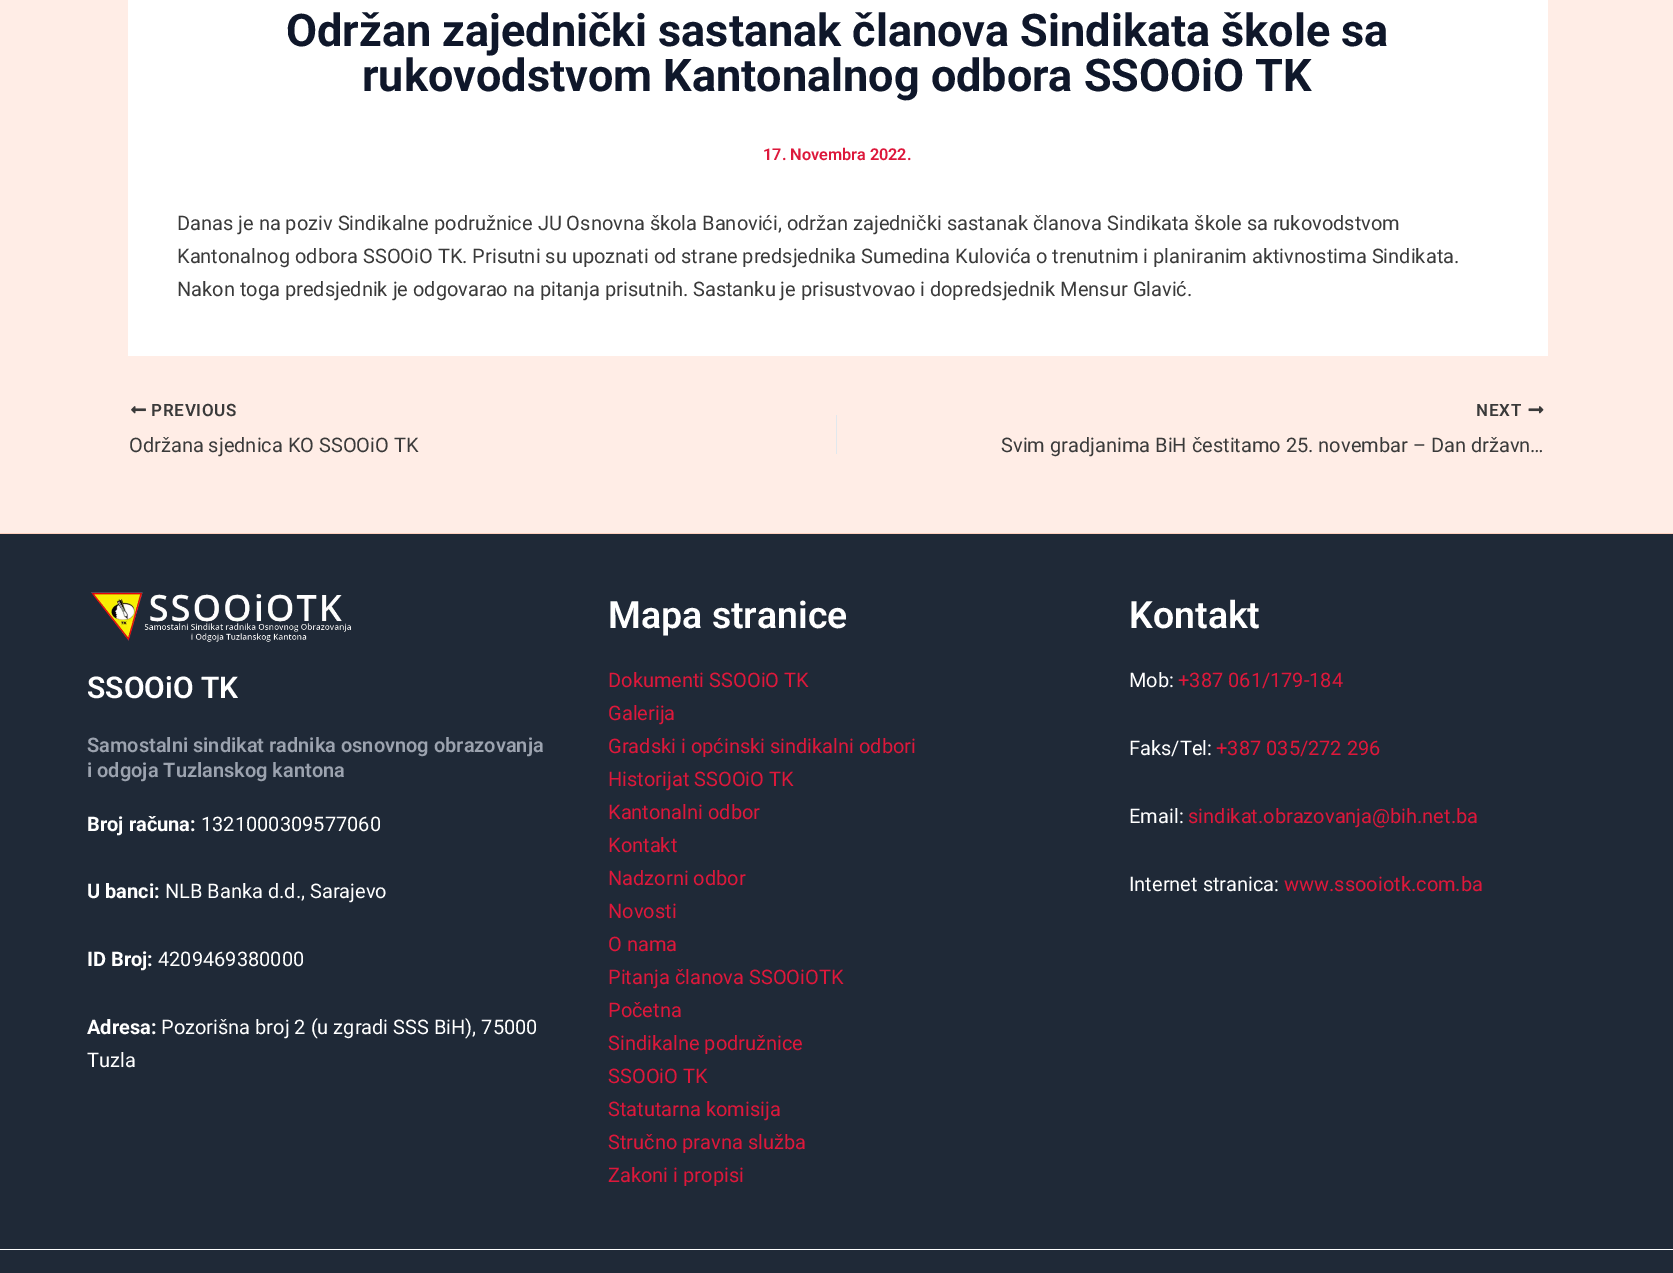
%!PS-Adobe-3.0
%%BoundingBox: 0 0 1673 1273
%%LanguageLevel: 3
%%Pages: 1
%%EndComments
%%BeginProlog
/drawimage { 5 dict begin { /h /w /y /x /name } { exch def } forall
  gsave x y translate w h scale
  w h 8 [w 0 0 h 0 0] name (r) file false 3 colorimage grestore end } def
%%EndProlog
%%BeginSetup
<< /PageSize [1673 1273] >> setpagedevice
%%EndSetup
%%Page: 1 1
0 1273 translate 1 -1 scale
4 setmiterlimit
1 0.929 0.902 setrgbcolor
0 0 1673 1273 rectfill
1 setgray
128 0 1420 356 rectfill
(images/1.raw) 131 406 15 8 drawimage
0.882 0.91 0.929 setrgbcolor
836 415 1 39 rectfill
(images/2.raw) 1528 406 16 8 drawimage
0.122 0.161 0.216 setrgbcolor
0 534 1673 715 rectfill
1 0.82 0.749 setrgbcolor
0 533 1673 1 rectfill
(images/3.raw) 91 592 260 50 drawimage
0.122 0.161 0.216 setrgbcolor
0 1250 1673 23 rectfill
1 setgray
0 1249 1673 1 rectfill
/Roboto-Bold [45 0 0 -45 0 0] selectfont
0.059 0.09 0.165 setrgbcolor
286 46 moveto (Održan zajednički sastanak članova Sindikata škole sa) show
362 91 moveto (rukovodstvom Kantonalnog odbora SSOOiO TK) show
/Roboto-SemiBold [16.25 0 0 -16.25 0 0] selectfont
0.867 0.094 0.231 setrgbcolor
763 160 moveto (17. Novembra 2022.) show
/Roboto-Regular [20 0 0 -20 0 0] selectfont
0.227 setgray
177 230 moveto (Danas je na poziv Sindikalne podružnice JU Osnovna škola Banovići, održan zajednički sastanak članova Sindikata škole sa rukovodstvom) show
177 263 moveto (Kantonalnog odbora SSOOiO TK. Prisutni su upoznati od strane predsjednika Sumedina Kulovića o trenutnim i planiranim aktivnostima Sindikata.) show
177 296 moveto (Nakon toga predsjednik je odgovarao na pitanja prisutnih. Sastanku je prisustvovao i dopredsjednik Mensur Glavić.) show
/Roboto-SemiBold [17 0 0 -17 0 0] selectfont
151 416 moveto 0.75 0 (PREVIOUS) ashow
/Roboto-Regular [20 0 0 -20 0 0] selectfont
129 452 moveto (Održana sjednica KO SSOOiO TK) show
/Roboto-SemiBold [17 0 0 -17 0 0] selectfont
1476 416 moveto 0.75 0 (NEXT) ashow
/Roboto-Regular [20 0 0 -20 0 0] selectfont
1001 452 moveto (Svim gradjanima BiH čestitamo 25. novembar – Dan državn…) show
/Roboto-SemiBold [30 0 0 -30 0 0] selectfont
1 setgray
87 698 moveto (SSOOiO TK) show
/Roboto-SemiBold [20 0 0 -20 0 0] selectfont
0.612 0.639 0.686 setrgbcolor
87 752 moveto (Samostalni sindikat radnika osnovnog obrazovanja) show
87 777 moveto (i odgoja Tuzlanskog kantona) show
/Roboto-Bold [20 0 0 -20 0 0] selectfont
1 setgray
87 831 moveto (Broj računa:) show
/Roboto-Regular [20 0 0 -20 0 0] selectfont
201 831 moveto (1321000309577060) show
/Roboto-Bold [20 0 0 -20 0 0] selectfont
87 898 moveto (U banci:) show
/Roboto-Regular [20 0 0 -20 0 0] selectfont
165 898 moveto (NLB Banka d.d., Sarajevo) show
/Roboto-Bold [20 0 0 -20 0 0] selectfont
87 966 moveto (ID Broj:) show
/Roboto-Regular [20 0 0 -20 0 0] selectfont
158 966 moveto (4209469380000) show
/Roboto-Bold [20 0 0 -20 0 0] selectfont
87 1034 moveto (Adresa:) show
/Roboto-Regular [20 0 0 -20 0 0] selectfont
161 1034 moveto (Pozorišna broj 2 \(u zgradi SSS BiH\), 75000) show
87 1067 moveto (Tuzla) show
/Roboto-SemiBold [37.5 0 0 -37.5 0 0] selectfont
608 628 moveto (Mapa stranice) show
/Roboto-Regular [20 0 0 -20 0 0] selectfont
0.867 0.094 0.231 setrgbcolor
608 687 moveto (Dokumenti SSOOiO TK) show
608 720 moveto (Galerija) show
608 753 moveto (Gradski i općinski sindikalni odbori) show
608 786 moveto (Historijat SSOOiO TK) show
608 819 moveto (Kantonalni odbor) show
608 852 moveto (Kontakt) show
608 885 moveto (Nadzorni odbor) show
608 918 moveto (Novosti) show
608 951 moveto (O nama) show
608 984 moveto (Pitanja članova SSOOiOTK) show
608 1017 moveto (Početna) show
608 1050 moveto (Sindikalne podružnice) show
608 1083 moveto (SSOOiO TK) show
608 1116 moveto (Statutarna komisija) show
608 1149 moveto (Stručno pravna služba) show
608 1182 moveto (Zakoni i propisi) show
/Roboto-SemiBold [37.5 0 0 -37.5 0 0] selectfont
1 setgray
1129 628 moveto (Kontakt) show
/Roboto-Regular [20 0 0 -20 0 0] selectfont
1129 687 moveto (Mob:) show
0.867 0.094 0.231 setrgbcolor
1178 687 moveto (+387 061/179-184) show
1 setgray
1129 755 moveto (Faks/Tel:) show
0.867 0.094 0.231 setrgbcolor
1216 755 moveto (+387 035/272 296) show
1 setgray
1129 823 moveto (Email:) show
0.867 0.094 0.231 setrgbcolor
1188 823 moveto (sindikat.obrazovanja@bih.net.ba) show
1 setgray
1129 891 moveto (Internet stranica:) show
0.867 0.094 0.231 setrgbcolor
1284 891 moveto (www.ssooiotk.com.ba) show
showpage
%%EOF
